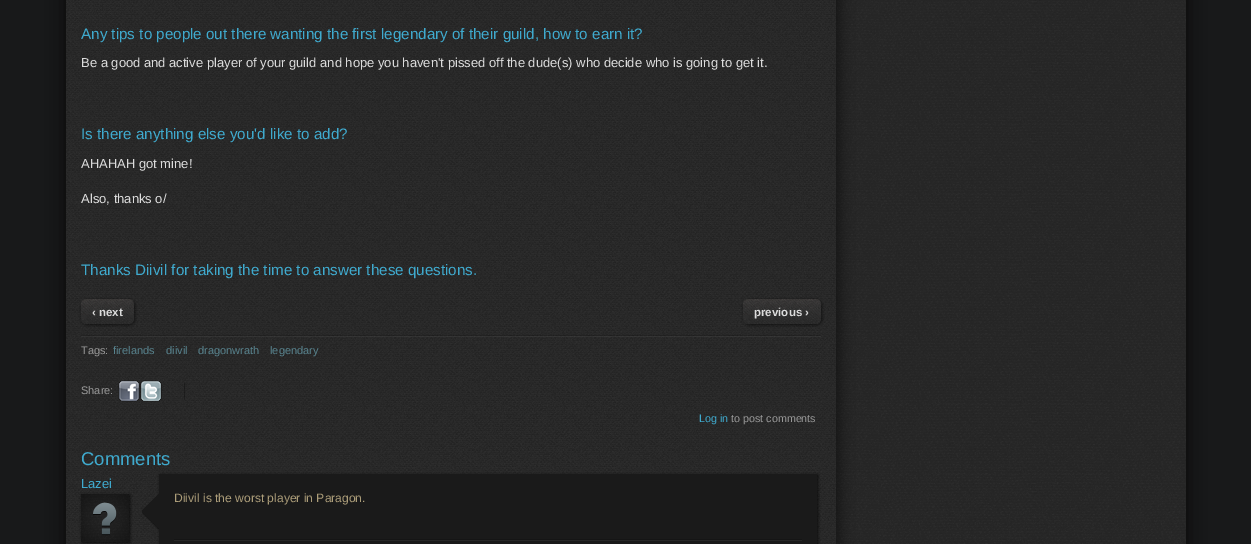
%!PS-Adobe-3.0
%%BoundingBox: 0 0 1251 544
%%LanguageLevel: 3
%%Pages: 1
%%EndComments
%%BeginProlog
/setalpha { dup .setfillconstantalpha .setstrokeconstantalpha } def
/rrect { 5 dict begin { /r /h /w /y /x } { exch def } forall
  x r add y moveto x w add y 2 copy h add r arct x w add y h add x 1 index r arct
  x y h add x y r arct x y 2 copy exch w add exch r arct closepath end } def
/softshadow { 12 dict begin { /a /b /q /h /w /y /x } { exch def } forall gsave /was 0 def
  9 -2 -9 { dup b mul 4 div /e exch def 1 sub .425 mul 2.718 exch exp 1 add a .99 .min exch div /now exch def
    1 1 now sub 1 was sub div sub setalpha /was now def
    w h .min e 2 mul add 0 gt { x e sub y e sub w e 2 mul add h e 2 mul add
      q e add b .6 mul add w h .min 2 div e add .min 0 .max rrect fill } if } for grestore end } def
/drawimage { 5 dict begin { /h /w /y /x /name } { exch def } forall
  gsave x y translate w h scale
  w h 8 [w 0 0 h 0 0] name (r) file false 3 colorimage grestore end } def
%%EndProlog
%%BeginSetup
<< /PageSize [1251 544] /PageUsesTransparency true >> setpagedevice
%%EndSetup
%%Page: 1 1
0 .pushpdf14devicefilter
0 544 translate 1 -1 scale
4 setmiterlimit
0.094 0.098 0.102 setrgbcolor
0 0 1251 544 rectfill
0 setgray
66 -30 1120 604 0 10 0.7 softshadow
(images/1.raw) 66 0 1120 544 drawimage
82 300 53 25 5 1.5 0.5 softshadow
(images/2.raw) 81 299 53 25 drawimage
744 300 78 25 5 1.5 0.5 softshadow
(images/3.raw) 743 299 78 25 drawimage
(images/4.raw) 81 335 740 2 drawimage
(images/5.raw) 118 380 22 22 drawimage
(images/6.raw) 140 380 22 22 drawimage
(images/7.raw) 184 382 1 18 drawimage
82 495 48 48 0 1.5 0.7 softshadow
(images/8.raw) 81 494 48 48 drawimage
160 475 658 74 0 1.5 0.7 softshadow
0.102 setgray
159 474 658 70 rectfill
(images/9.raw) 142 494 17 35 drawimage
(images/10.raw) 174 539 628 2 drawimage
/LiberationSans-Regular [15.2 0 0 -15.2 0 0] selectfont
0.247 0.667 0.808 setrgbcolor
81 39 moveto (Any tips to people out there wanting the first legendary of their guild, how to earn it?) show
/LiberationSans-Regular [13 0 0 -13 0 0] selectfont
0.863 setgray
81 67 moveto (Be a good and active player of your guild and hope you haven't pissed off the dude\(s\) who decide who is going to get it.) show
/LiberationSans-Regular [15.2 0 0 -15.2 0 0] selectfont
0.247 0.667 0.808 setrgbcolor
81 139 moveto (Is there anything else you'd like to add?) show
/LiberationSans-Regular [13 0 0 -13 0 0] selectfont
0.863 setgray
81 168 moveto (AHAHAH got mine!) show
81 203 moveto (Also, thanks o/) show
/LiberationSans-Regular [15.2 0 0 -15.2 0 0] selectfont
0.247 0.667 0.808 setrgbcolor
81 275 moveto (Thanks Diivil for taking the time to answer these questions.) show
/LiberationSans-Bold [11.5 0 0 -11.5 0 0] selectfont
0.863 setgray
92 316 moveto (‹ next) show
754 316 moveto (previous ›) show
/LiberationSans-Regular [11 0 0 -11 0 0] selectfont
0.6 setgray
81 354 moveto (Tags:) show
0.345 0.514 0.557 setrgbcolor
113 354 moveto (firelands) show
166 354 moveto (diivil) show
198 354 moveto (dragonwrath) show
270 354 moveto (legendary) show
0.6 setgray
81 394 moveto (Share:) show
/LiberationSans-Regular [10.75 0 0 -10.75 0 0] selectfont
0.247 0.667 0.808 setrgbcolor
699 422 moveto (Log in) show
0.6 setgray
731 422 moveto (to post comments) show
/LiberationSans-Regular [18.5 0 0 -18.5 0 0] selectfont
0.247 0.667 0.808 setrgbcolor
81 465 moveto (Comments) show
/LiberationSans-Regular [13 0 0 -13 0 0] selectfont
81 488 moveto (Lazei) show
/LiberationSans-Regular [12.1 0 0 -12.1 0 0] selectfont
0.675 0.616 0.475 setrgbcolor
174 502 moveto (Diivil is the worst player in Paragon.) show
.poppdf14devicefilter showpage
%%EOF
